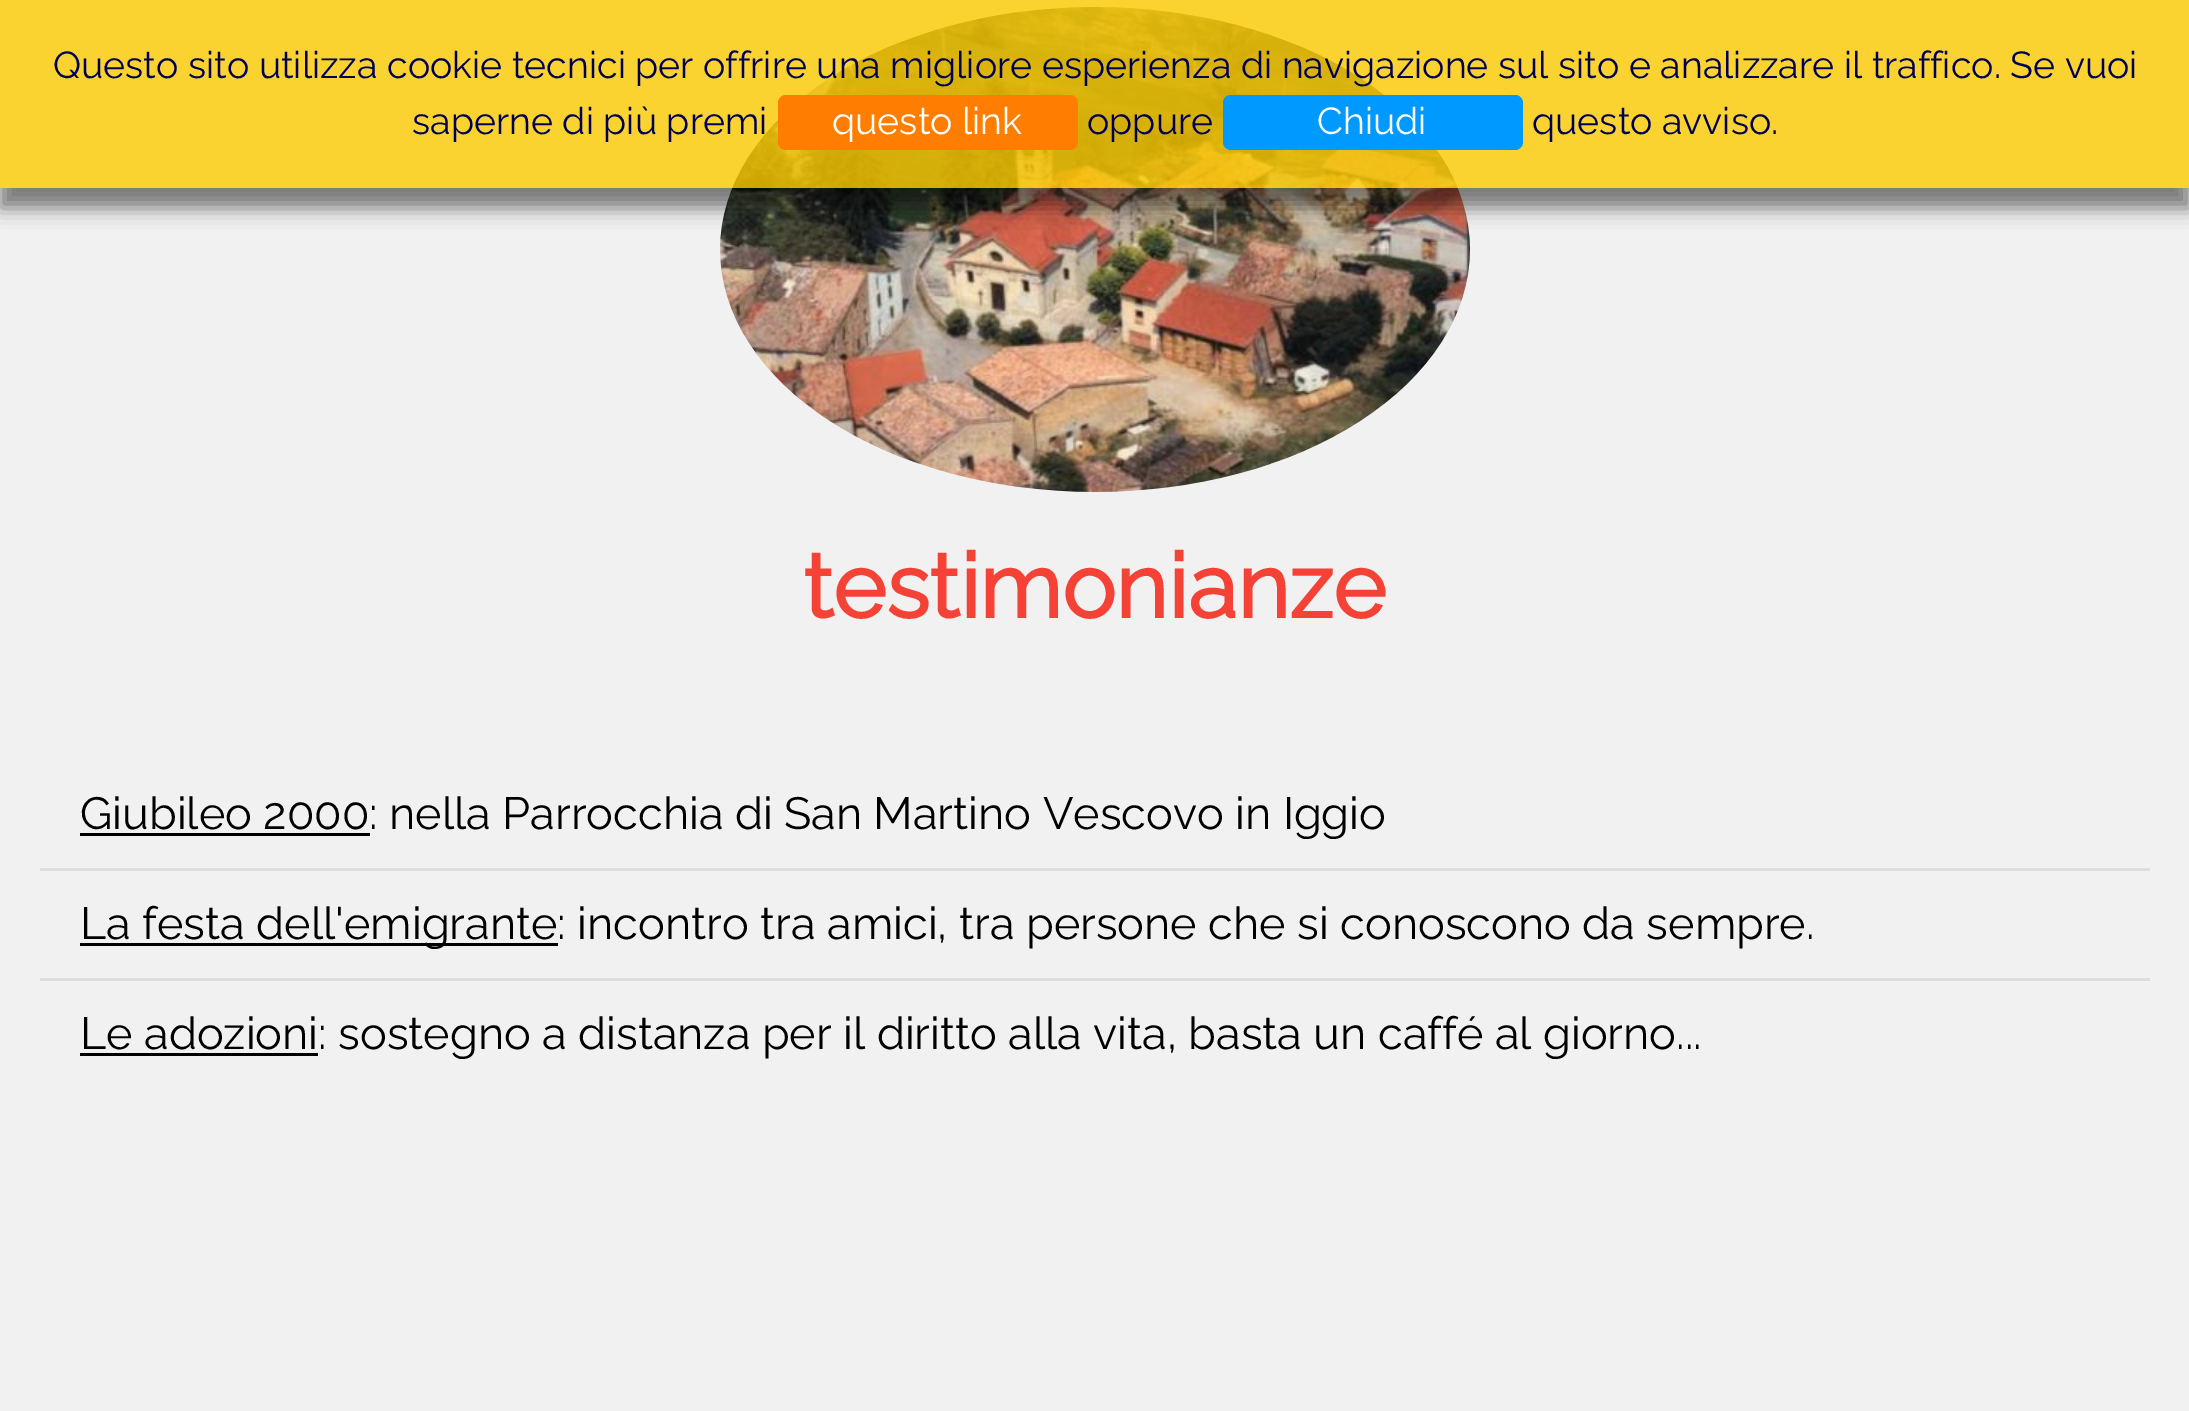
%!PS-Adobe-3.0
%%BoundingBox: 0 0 2189 1411
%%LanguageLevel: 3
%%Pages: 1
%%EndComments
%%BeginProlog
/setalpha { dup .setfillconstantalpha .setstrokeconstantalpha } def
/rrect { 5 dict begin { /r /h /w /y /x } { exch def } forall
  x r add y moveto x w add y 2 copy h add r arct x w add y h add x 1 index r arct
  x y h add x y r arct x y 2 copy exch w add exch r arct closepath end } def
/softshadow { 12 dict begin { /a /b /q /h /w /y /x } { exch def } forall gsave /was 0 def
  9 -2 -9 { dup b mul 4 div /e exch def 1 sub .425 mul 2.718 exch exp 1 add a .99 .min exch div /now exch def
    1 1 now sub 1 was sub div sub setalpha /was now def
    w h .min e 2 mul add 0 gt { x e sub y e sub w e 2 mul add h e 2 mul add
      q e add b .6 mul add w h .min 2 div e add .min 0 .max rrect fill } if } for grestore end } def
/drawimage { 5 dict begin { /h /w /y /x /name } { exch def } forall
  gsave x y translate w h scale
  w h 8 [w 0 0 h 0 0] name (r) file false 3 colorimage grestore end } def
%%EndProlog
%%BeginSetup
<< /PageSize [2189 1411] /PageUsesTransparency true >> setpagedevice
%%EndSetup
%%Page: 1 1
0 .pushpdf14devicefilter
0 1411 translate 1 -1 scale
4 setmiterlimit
0.945 setgray
0 0 2189 1411 rectfill
(images/1.raw) 720 7 750 485 drawimage
gsave
newpath 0 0 moveto 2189 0 lineto 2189 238 lineto 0 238 lineto closepath 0 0 moveto 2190 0 lineto 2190 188 lineto 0 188 lineto closepath eoclip newpath
0 setgray
0 20 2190 188 0 9.5 0.5 softshadow
grestore
0.8 setalpha
0.996 0.796 0 setrgbcolor
0 0 2189 188 rectfill
1 setalpha
1 0.49 0 setrgbcolor
778 95 300 55 8 rrect fill
0 0.6 1 setrgbcolor
1223 95 300 55 8 rrect fill
0.867 setgray
40 868 2110 3 rectfill
0 setgray
80 833 290 3 rectfill
0.867 setgray
40 978 2110 3 rectfill
0 setgray
80 943 478 3 rectfill
80 1053 238 3 rectfill
/Raleway-Thin [37.5 0 0 -37.5 0 0] selectfont
0 0 0.333 setrgbcolor
53 78 moveto (Questo sito utilizza cookie tecnici per offrire una migliore esperienza di navigazione sul sito e analizzare il traffico. Se vuoi) show
412 134 moveto (saperne di più premi) show
1 setgray
832 134 moveto (questo link) show
0 0 0.333 setrgbcolor
1087 134 moveto (oppure) show
1 setgray
1317 134 moveto (Chiudi) show
0 0 0.333 setrgbcolor
1532 134 moveto (questo avviso.) show
/Raleway-Bold [90 0 0 -90 0 0] selectfont
0.957 0.263 0.212 setrgbcolor
803 618 moveto (testimonianze) show
/Raleway-Thin [45 0 0 -45 0 0] selectfont
0 setgray
80 829 moveto (Giubileo 2000: nella Parrocchia di San Martino Vescovo in Iggio) show
80 939 moveto (La festa dell'emigrante: incontro tra amici, tra persone che si conoscono da sempre.) show
80 1049 moveto (Le adozioni: sostegno a distanza per il diritto alla vita, basta un caffé al giorno...) show
.poppdf14devicefilter showpage
%%EOF
